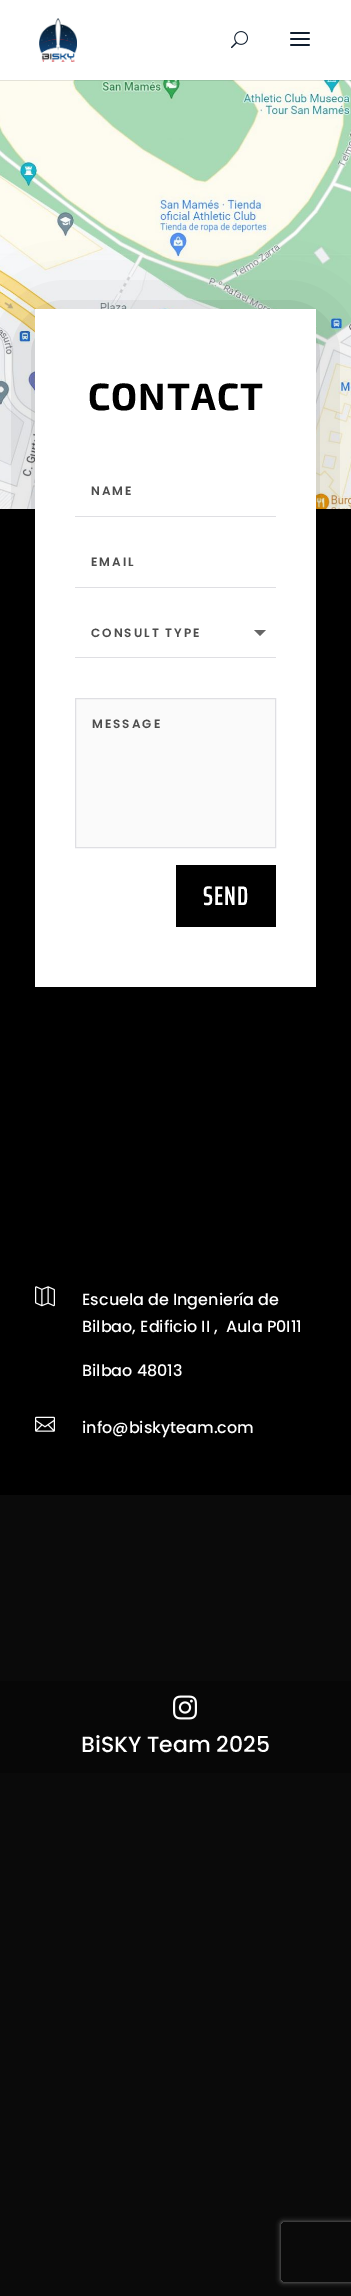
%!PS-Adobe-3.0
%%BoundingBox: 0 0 351 2296
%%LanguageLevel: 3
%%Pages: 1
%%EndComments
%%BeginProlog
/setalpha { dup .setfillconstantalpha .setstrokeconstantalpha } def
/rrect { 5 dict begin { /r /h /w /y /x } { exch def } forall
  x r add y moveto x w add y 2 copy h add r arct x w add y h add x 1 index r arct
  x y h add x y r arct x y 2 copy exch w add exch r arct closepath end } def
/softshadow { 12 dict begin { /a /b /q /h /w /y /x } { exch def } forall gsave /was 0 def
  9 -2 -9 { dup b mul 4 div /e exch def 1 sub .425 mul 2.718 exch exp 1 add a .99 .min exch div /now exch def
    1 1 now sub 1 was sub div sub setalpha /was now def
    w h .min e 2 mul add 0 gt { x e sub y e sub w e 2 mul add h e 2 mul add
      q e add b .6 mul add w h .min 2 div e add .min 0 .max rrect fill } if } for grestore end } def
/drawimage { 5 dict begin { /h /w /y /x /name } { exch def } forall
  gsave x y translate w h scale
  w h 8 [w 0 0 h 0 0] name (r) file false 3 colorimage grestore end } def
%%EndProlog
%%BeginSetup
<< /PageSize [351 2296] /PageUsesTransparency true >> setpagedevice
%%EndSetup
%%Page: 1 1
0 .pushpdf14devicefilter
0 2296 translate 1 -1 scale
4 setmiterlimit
0.039 setgray
0 0 351 2296 rectfill
(images/4.raw) 0 80 351 429 drawimage
0.1 setalpha
0 setgray
0 80 351 1 rectfill
1 setalpha
1 setgray
0 0 351 80 rectfill
(images/1.raw) 39 18 38 44 drawimage
(images/2.raw) 231 31 17 18 drawimage
(images/3.raw) 290 32 20 14 drawimage
0 setgray
0 509 351 986 rectfill
41 330 269 666 0 40 0.3 softshadow
1 setgray
35 309 281 678 rectfill
0.875 0.875 0.89 setrgbcolor
75 516 201 1 rectfill
75 587 201 1 rectfill
75 657 201 1 rectfill
0.4 setgray
newpath 254 630 moveto 266 630 lineto 260 636 lineto closepath fill
0.98 setgray
newpath 75.5 698.5 moveto 275.5 698.5 lineto 275.5 847.5 lineto 75.5 847.5 lineto closepath gsave fill grestore
0.875 0.875 0.89 setrgbcolor
stroke
0 setgray
176 865 100 62 rectfill
(images/5.raw) 35 1286 20 21 drawimage
(images/6.raw) 35 1416 20 16 drawimage
0.027 setgray
0 1681 351 92 rectfill
(images/7.raw) 173 1695 24 25 drawimage
gsave
newpath 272 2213 moveto 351 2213 lineto 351 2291 lineto 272 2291 lineto closepath 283 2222 moveto 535 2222 lineto 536 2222 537 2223 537 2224 curveto 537 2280 lineto 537 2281 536 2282 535 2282 curveto 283 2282 lineto 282 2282 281 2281 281 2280 curveto 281 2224 lineto 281 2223 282 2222 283 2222 curveto closepath eoclip newpath
0.502 setgray
281 2222 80 60 2 2.5 1 softshadow
grestore
/Exo2-Bold [38 0 0 -38 0 0] selectfont
0 setgray
88 410 moveto 1 0 (CONTACT) ashow
/Poppins-SemiBold [12 0 0 -12 0 0] selectfont
0.302 setgray
91 495 moveto 2 0 (NAME) ashow
91 566 moveto 2 0 (EMAIL) ashow
91 637 moveto 2 0 (CONSULT TYPE) ashow
92 728 moveto 2 0 (MESSAGE) ashow
/SairaExtraCondensed-SemiBold [27 0 0 -27 0 0] selectfont
1 setgray
203 905 moveto 1 0 (SEND) ashow
/Poppins-Medium [16 0 0 -16 0 0] selectfont
82 1305 moveto (Escuela de Ingeniería de) show
82 1332 moveto (Bilbao, Edificio II ,  Aula P0I11) show
82 1376 moveto (Bilbao 48013) show
82 1433 moveto (info@biskyteam.com) show
/Poppins-Medium [22 0 0 -22 0 0] selectfont
81 1752 moveto (BiSKY Team 2025) show
.poppdf14devicefilter showpage
%%EOF
